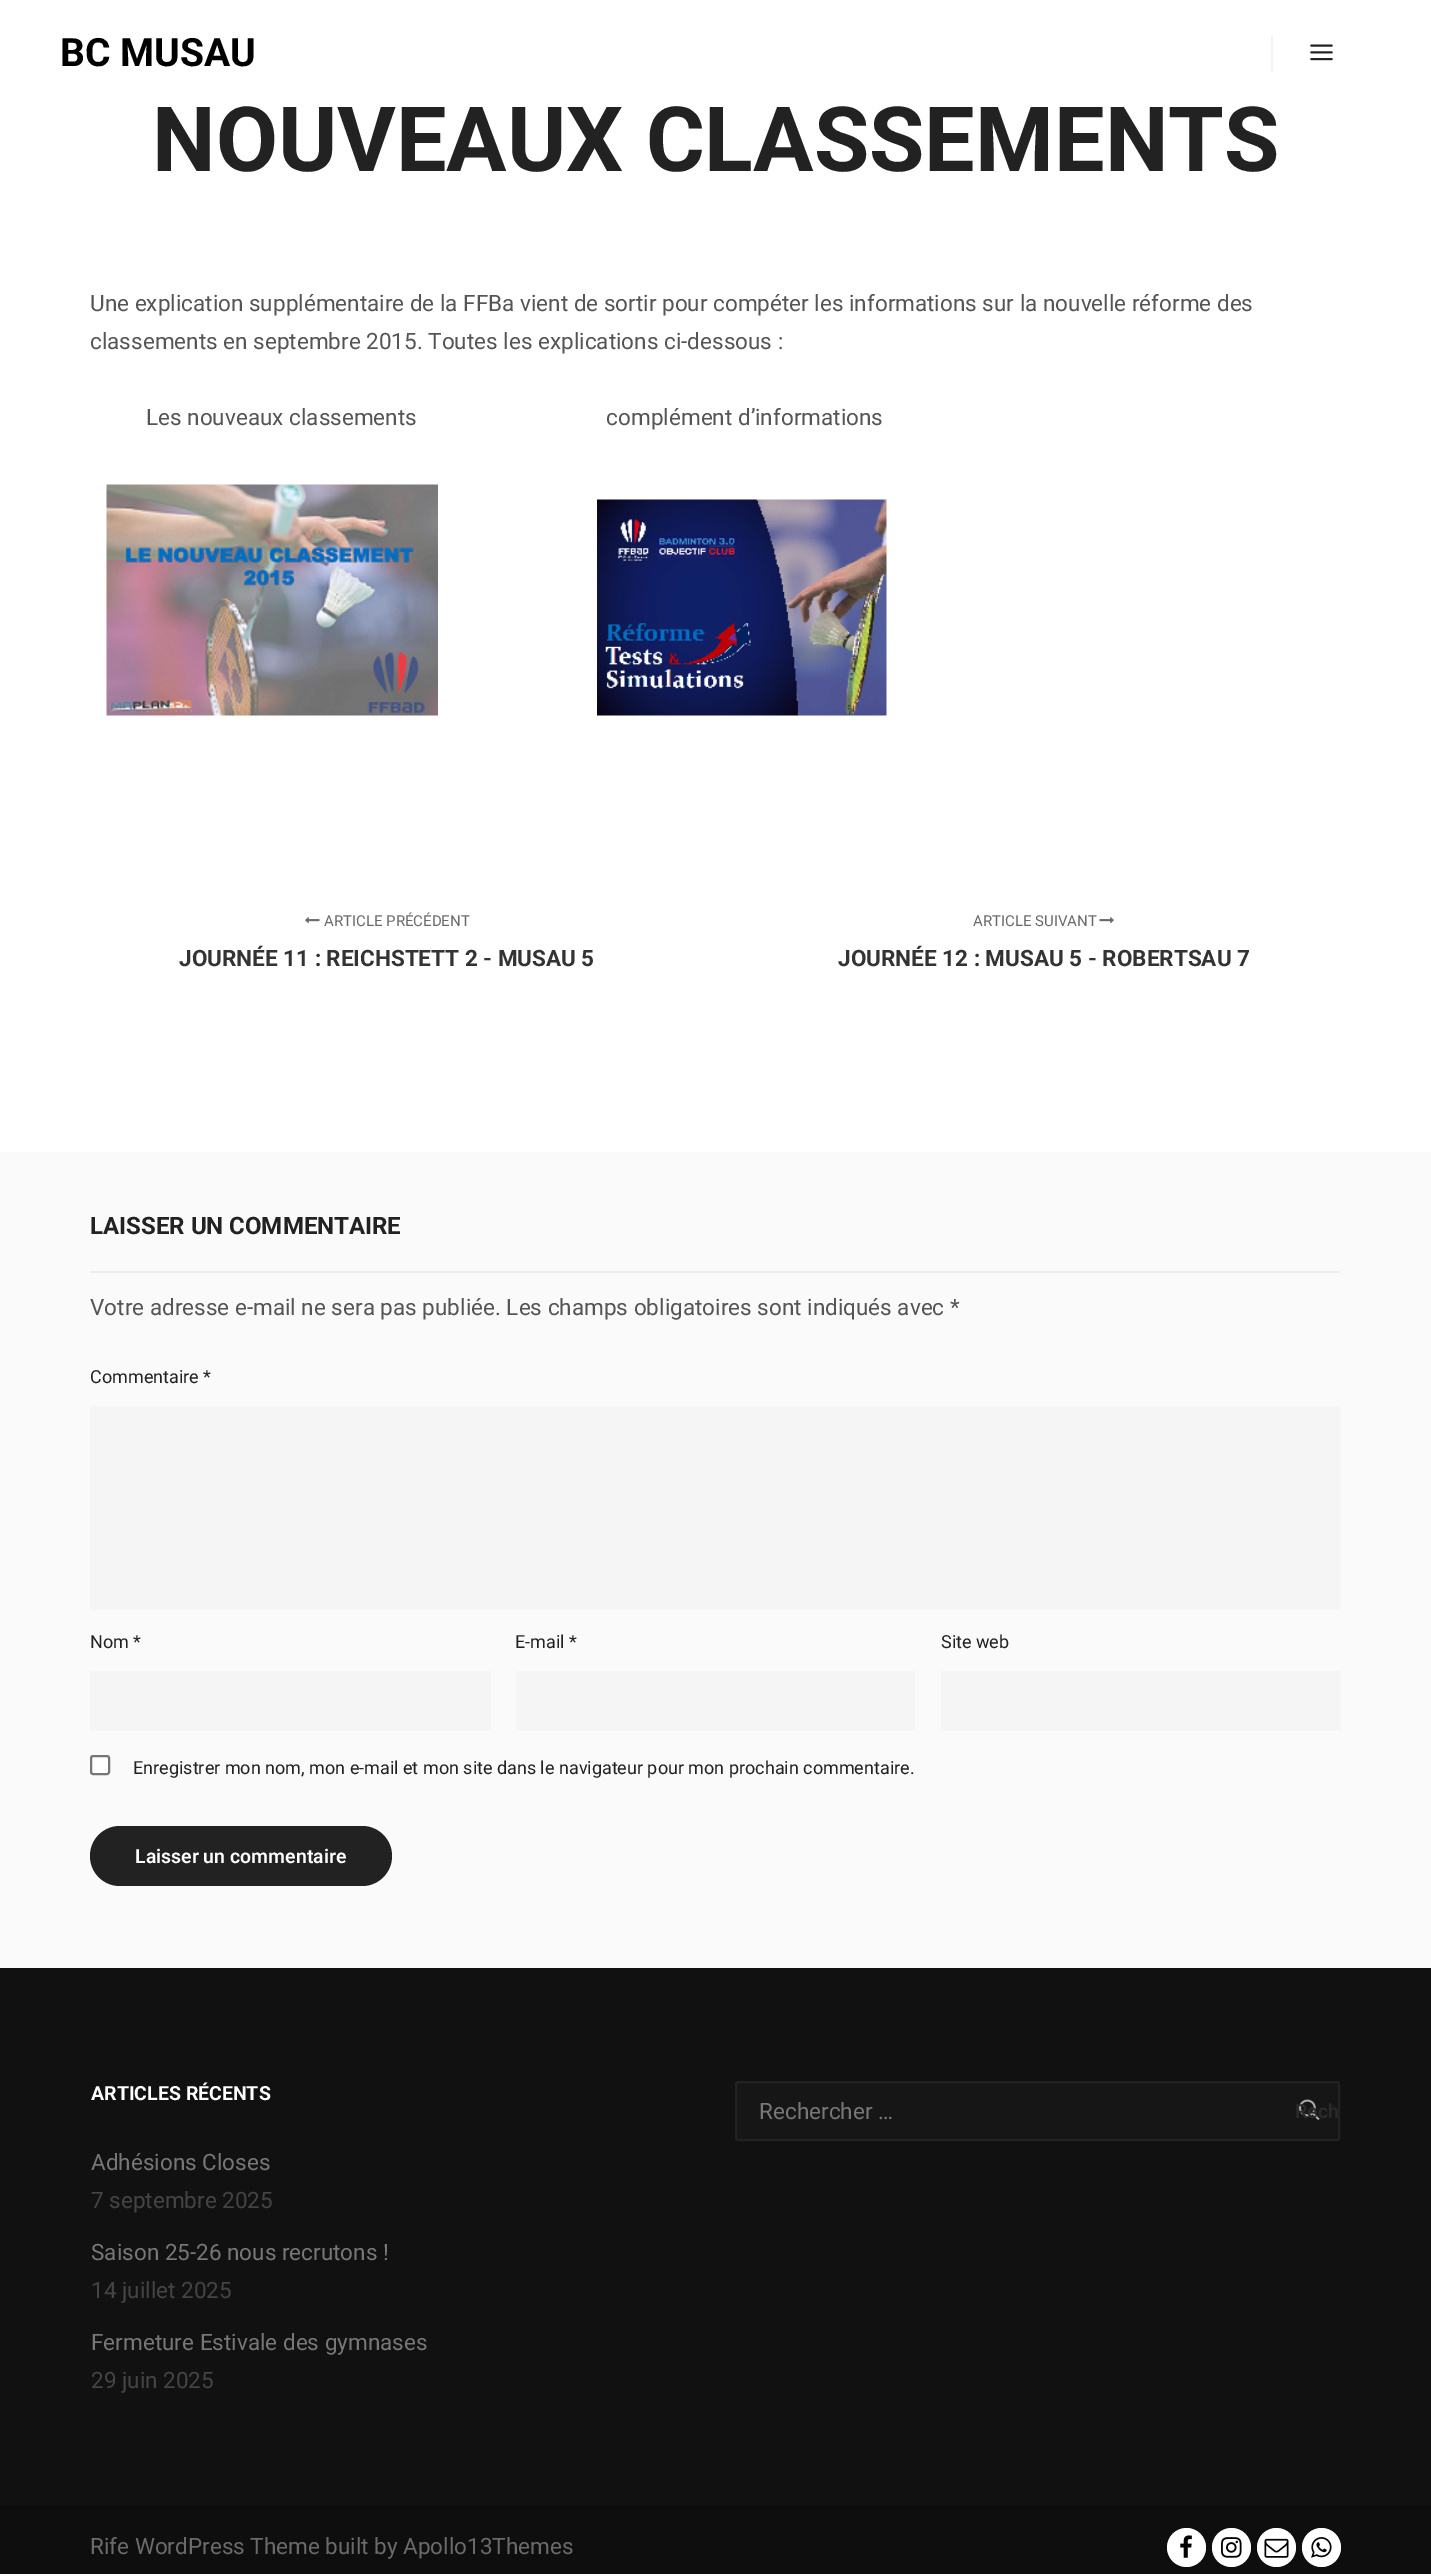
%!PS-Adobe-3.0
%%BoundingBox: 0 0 1431 2574
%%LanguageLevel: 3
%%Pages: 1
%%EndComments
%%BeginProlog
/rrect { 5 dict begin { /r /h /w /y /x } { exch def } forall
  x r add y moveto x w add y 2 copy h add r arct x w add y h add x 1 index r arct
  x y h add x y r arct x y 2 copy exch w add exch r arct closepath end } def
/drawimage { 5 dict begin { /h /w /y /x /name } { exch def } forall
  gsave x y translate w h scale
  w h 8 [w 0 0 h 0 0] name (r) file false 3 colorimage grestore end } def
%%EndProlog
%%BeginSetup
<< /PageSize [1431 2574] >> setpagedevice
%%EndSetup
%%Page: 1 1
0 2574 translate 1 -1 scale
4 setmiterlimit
1 setgray
0 0 1431 2574 rectfill
0.953 setgray
1271 35 2 37 rectfill
(images/1.raw) 1310 44 23 17 drawimage
(images/2.raw) 106 484 332 232 drawimage
(images/3.raw) 597 499 290 217 drawimage
(images/4.raw) 305 917 15 7 drawimage
(images/5.raw) 1099 917 15 7 drawimage
0.98 setgray
0 1152 1431 816 rectfill
0.933 setgray
90 1271 1251 2 rectfill
0.961 setgray
90 1406 1251 204 rectfill
90 1671 401 60 rectfill
516 1671 399 60 rectfill
941 1671 400 60 rectfill
1 setgray
91 1756 18 18 2 rrect gsave fill grestore
0.463 setgray
2 setlinewidth
stroke
0.133 setgray
90 1826 302 60 30 rrect fill
0.067 setgray
0 1968 1431 537 rectfill
0.086 setgray
736 2082 603 58 2 rrect gsave fill grestore
0.133 setgray
stroke
(images/6.raw) 1299 2099 21 22 drawimage
0.055 setgray
0 2505 1431 69 rectfill
1 setgray
newpath 1186.5 2547.5 19.5 0 360 arc closepath fill
(images/7.raw) 1180 2535 12 23 drawimage
newpath 1231.5 2547.5 19.5 0 360 arc closepath fill
(images/8.raw) 1221 2537 21 21 drawimage
newpath 1276.5 2547.5 19.5 0 360 arc closepath fill
(images/9.raw) 1264 2538 25 20 drawimage
newpath 1321.5 2547.5 19.5 0 360 arc closepath fill
(images/10.raw) 1311 2537 21 21 drawimage
/Roboto-Bold [39 0 0 -39 0 0] selectfont
0 setgray
60 66 moveto (BC MUSAU) show
/Roboto-Bold [90 0 0 -90 0 0] selectfont
0.133 setgray
152 171 moveto (NOUVEAUX CLASSEMENTS) show
/Roboto-Regular [22.5 0 0 -22.5 0 0] selectfont
0.333 setgray
90 311 moveto (Une explication supplémentaire de la FFBa vient de sortir pour compéter les informations sur la nouvelle réforme des) show
90 349 moveto (classements en septembre 2015. Toutes les explications ci-dessous :) show
146 425 moveto (Les nouveaux classements                                  complément d’informations) show
/Roboto-Regular [15 0 0 -15 0 0] selectfont
0.416 setgray
324 926 moveto (ARTICLE PRÉCÉDENT) show
/Roboto-Bold [22.5 0 0 -22.5 0 0] selectfont
0.2 setgray
179 966 moveto (JOURNÉE 11 : REICHSTETT 2 - MUSAU 5) show
/Roboto-Regular [15 0 0 -15 0 0] selectfont
0.416 setgray
973 926 moveto (ARTICLE SUIVANT) show
/Roboto-Bold [22.5 0 0 -22.5 0 0] selectfont
0.2 setgray
838 966 moveto (JOURNÉE 12 : MUSAU 5 - ROBERTSAU 7) show
/Roboto-Bold [24 0 0 -24 0 0] selectfont
0.133 setgray
90 1234 moveto (LAISSER UN COMMENTAIRE) show
/Roboto-Regular [22.5 0 0 -22.5 0 0] selectfont
0.333 setgray
90 1315 moveto (Votre adresse e-mail ne sera pas publiée. Les champs obligatoires sont indiqués avec *) show
/Roboto-Regular [18 0 0 -18 0 0] selectfont
0.133 setgray
90 1383 moveto (Commentaire *) show
90 1648 moveto (Nom *) show
515 1648 moveto (E-mail *) show
941 1648 moveto (Site web) show
133 1774 moveto (Enregistrer mon nom, mon e-mail et mon site dans le navigateur pour mon prochain commentaire.) show
/Roboto-SemiBold [19.5 0 0 -19.5 0 0] selectfont
1 setgray
135 1863 moveto (Laisser un commentaire) show
/Roboto-Bold [19.5 0 0 -19.5 0 0] selectfont
91 2100 moveto (ARTICLES RÉCENTS) show
/Roboto-Regular [22.5 0 0 -22.5 0 0] selectfont
0.467 setgray
91 2170 moveto (Adhésions Closes) show
0.267 setgray
91 2208 moveto (7 septembre 2025) show
0.467 setgray
91 2260 moveto (Saison 25-26 nous recrutons !) show
0.267 setgray
91 2298 moveto (14 juillet 2025) show
0.467 setgray
91 2350 moveto (Fermeture Estivale des gymnases) show
0.267 setgray
91 2388 moveto (29 juin 2025) show
0.467 setgray
759 2119 moveto (Rechercher …) show
/Roboto-SemiBold [19.5 0 0 -19.5 0 0] selectfont
0.165 setgray
1295 2118 moveto (Rech) show
/Roboto-Regular [22.5 0 0 -22.5 0 0] selectfont
0.416 setgray
90 2554 moveto (Rife WordPress Theme built by Apollo13Themes) show
showpage
%%EOF
